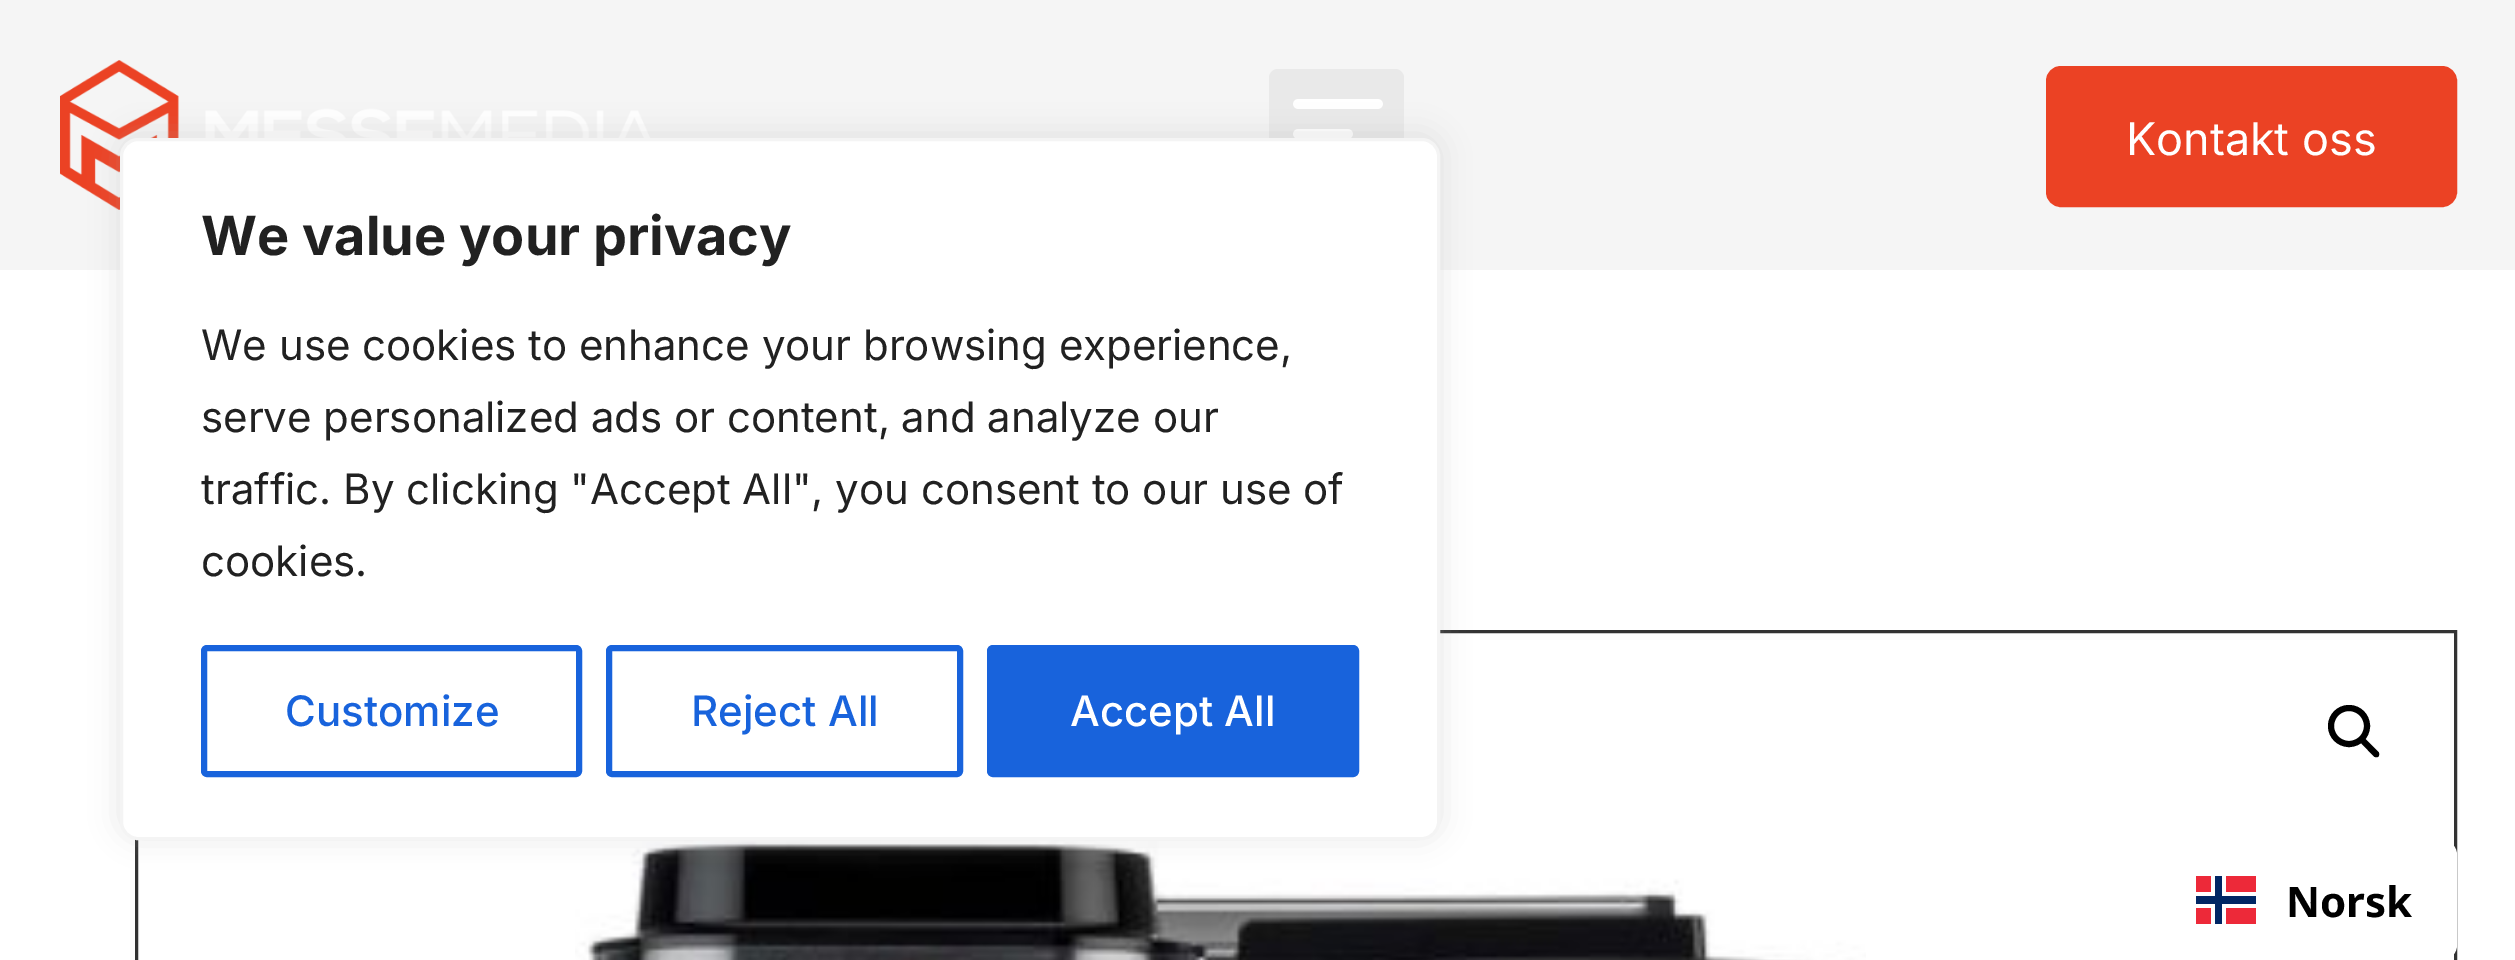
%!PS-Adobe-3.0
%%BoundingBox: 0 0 2515 960
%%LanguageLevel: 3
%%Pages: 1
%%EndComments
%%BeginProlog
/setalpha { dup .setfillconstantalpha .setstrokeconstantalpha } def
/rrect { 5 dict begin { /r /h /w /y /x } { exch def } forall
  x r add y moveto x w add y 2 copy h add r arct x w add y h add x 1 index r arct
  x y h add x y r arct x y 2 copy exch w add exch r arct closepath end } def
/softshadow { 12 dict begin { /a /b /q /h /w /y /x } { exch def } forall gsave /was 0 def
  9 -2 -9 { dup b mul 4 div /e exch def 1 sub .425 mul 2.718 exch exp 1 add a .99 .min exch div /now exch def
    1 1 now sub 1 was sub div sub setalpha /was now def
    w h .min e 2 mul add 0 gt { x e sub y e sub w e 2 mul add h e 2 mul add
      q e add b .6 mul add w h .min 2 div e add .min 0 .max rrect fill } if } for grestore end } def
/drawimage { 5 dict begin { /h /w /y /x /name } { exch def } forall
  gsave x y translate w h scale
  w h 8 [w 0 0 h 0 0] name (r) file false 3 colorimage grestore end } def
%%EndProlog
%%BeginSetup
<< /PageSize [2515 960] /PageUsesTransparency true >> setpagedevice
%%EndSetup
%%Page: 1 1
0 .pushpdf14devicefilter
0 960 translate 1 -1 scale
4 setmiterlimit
0.961 setgray
0 0 2515 960 rectfill
(images/1.raw) 60 60 591 150 drawimage
0.914 setgray
1269 69 135 135 9 rrect fill
(images/2.raw) 1293 99 90 39 drawimage
0.922 0.259 0.141 setrgbcolor
2049 69 405 135 12 rrect gsave fill grestore
6 setlinewidth
stroke
1 setgray
0 270 2515 690 rectfill
0.2 setgray
3 setlinewidth
136.5 631.5 2319 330 rectstroke
(images/3.raw) 575 835 1291 125 drawimage
0.675 0.671 0.671 setrgbcolor
120 135 1320 702 18 15 0.3 softshadow
1 setgray
121.5 139.5 1317 699 16.5 rrect gsave fill grestore
0.957 setgray
stroke
0.094 0.388 0.863 setrgbcolor
6 setlinewidth
204 648 375 126 3 rrect stroke
609 648 351 126 3 rrect stroke
990 648 366 126 3 rrect gsave fill grestore
stroke
0 setgray
newpath 2349 726 18 0 360 arc closepath stroke
newpath 2361.5 739.5 moveto 2362.5 738 2364.5 738 2366 739.5 curveto 2378.5 752 lineto 2379.5 753.5 2379.5 755 2378.5 756.5 curveto 2377.5 757.5 2375.5 757.5 2374 756.5 curveto 2361.5 743.5 lineto 2360.5 742.5 2360.5 740.5 2361.5 739.5 curveto closepath fill
1 setgray
2151 840 306 120 15 rrect fill
0.929 0.161 0.224 setrgbcolor
2196 876 60 48 rectfill
1 setgray
2211 876 15 48 rectfill
2196 892 60 16 rectfill
0 0.149 0.392 setrgbcolor
2215 876 7 48 rectfill
2196 896 60 8 rectfill
/Inter-Regular [45 0 0 -45 0 0] selectfont
1 setgray
2126 155 moveto (Kontakt oss) show
/Inter-Bold [54 0 0 -54 0 0] selectfont
0.129 setgray
201 255 moveto (We value your privacy) show
/Inter-Regular [42 0 0 -42 0 0] selectfont
201 360 moveto (We use cookies to enhance your browsing experience,) show
201 432 moveto (serve personalized ads or content, and analyze our) show
201 504 moveto (traffic. By clicking "Accept All", you consent to our use of) show
201 576 moveto (cookies.) show
/Inter-Medium [42 0 0 -42 0 0] selectfont
0.094 0.388 0.863 setrgbcolor
285 726 moveto (Customize) show
691 726 moveto (Reject All) show
1 setgray
1070 726 moveto (Accept All) show
/NotoSans-Bold [42 0 0 -42 0 0] selectfont
0 setgray
2286 917 moveto (Norsk) show
.poppdf14devicefilter showpage
%%EOF
